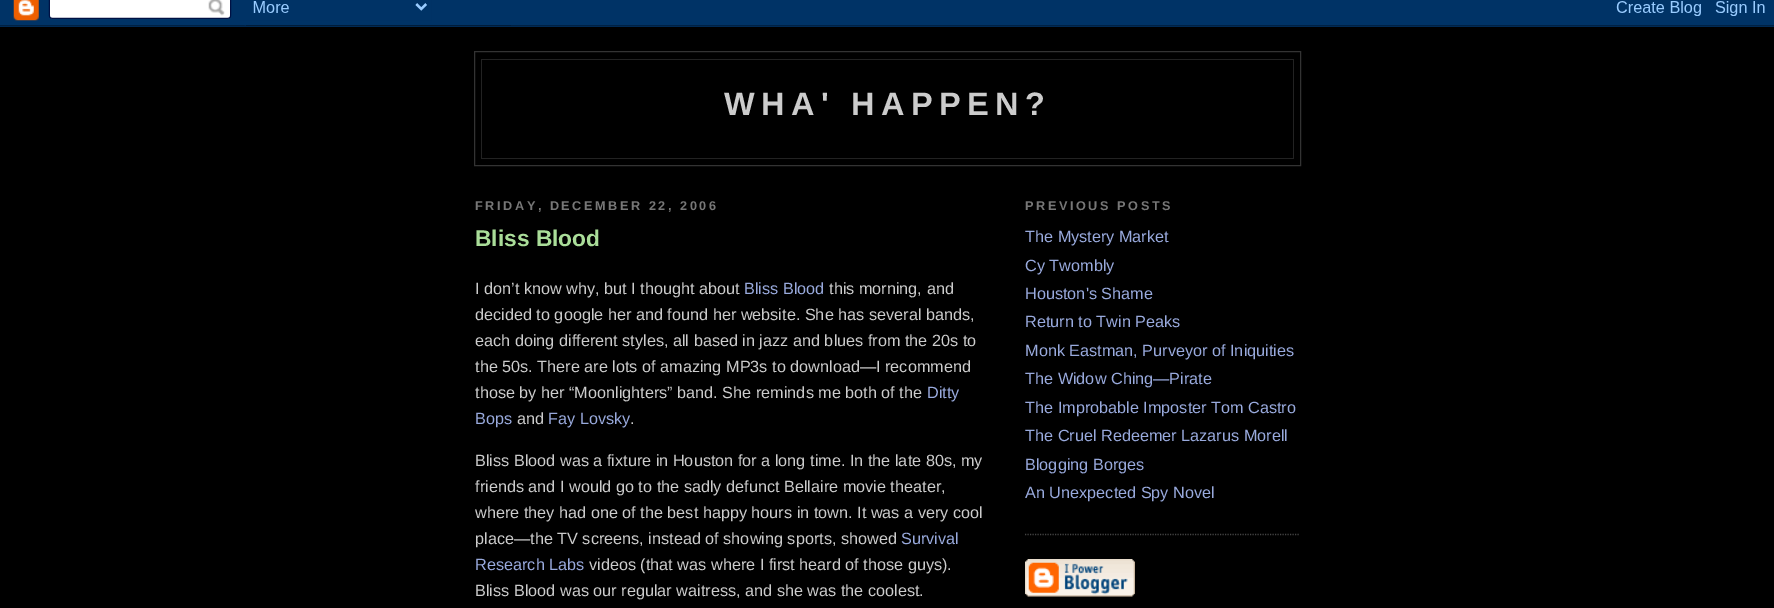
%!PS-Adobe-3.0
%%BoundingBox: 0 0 1774 608
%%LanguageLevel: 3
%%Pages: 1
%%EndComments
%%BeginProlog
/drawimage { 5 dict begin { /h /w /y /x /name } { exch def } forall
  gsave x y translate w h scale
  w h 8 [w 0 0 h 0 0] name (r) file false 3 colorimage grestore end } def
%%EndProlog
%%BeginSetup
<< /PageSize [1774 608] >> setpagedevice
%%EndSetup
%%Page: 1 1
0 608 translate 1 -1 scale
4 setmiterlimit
0 setgray
0 0 1774 608 rectfill
(images/1.raw) 0 0 1774 27 drawimage
0.2 setgray
474.5 51.5 826 114 rectstroke
0.133 setgray
481 59 813 1 rectfill
1293 59 1 100 rectfill
481 59 1 74 rectfill
481 158 813 1 rectfill
481 133 1 26 rectfill
0.267 setgray
1.2 setlinewidth
[1.25 1.25] 0 setdash
newpath 1025 534.5 moveto 1300 534.5 lineto stroke
(images/2.raw) 1025 559 110 38 drawimage
/LiberationSans-Bold [32.5 0 0 -32.5 0 0] selectfont
0.8 setgray
724 115 moveto 6.5 0 (WHA' HAPPEN?) ashow
/LiberationSans-Bold [12.7 0 0 -12.7 0 0] selectfont
0.467 setgray
475 210 moveto 2.55 0 (FRIDAY, DECEMBER 22, 2006) ashow
/LiberationSans-Bold [22.75 0 0 -22.75 0 0] selectfont
0.667 0.867 0.6 setrgbcolor
475 246 moveto (Bliss Blood) show
/LiberationSans-Regular [16.25 0 0 -16.25 0 0] selectfont
0.8 setgray
475 294 moveto (I don’t know why, but I thought about) show
0.6 0.667 0.867 setrgbcolor
744 294 moveto (Bliss Blood) show
0.8 setgray
829 294 moveto (this morning, and) show
475 320 moveto (decided to google her and found her website. She has several bands,) show
475 346 moveto (each doing different styles, all based in jazz and blues from the 20s to) show
475 372 moveto (the 50s. There are lots of amazing MP3s to download—I recommend) show
475 398 moveto (those by her “Moonlighters” band. She reminds me both of the) show
0.6 0.667 0.867 setrgbcolor
927 398 moveto (Ditty) show
475 424 moveto (Bops) show
0.8 setgray
517 424 moveto (and) show
0.6 0.667 0.867 setrgbcolor
548 424 moveto (Fay Lovsky) show
0.8 setgray
630 424 moveto (.) show
475 466 moveto (Bliss Blood was a fixture in Houston for a long time. In the late 80s, my) show
475 492 moveto (friends and I would go to the sadly defunct Bellaire movie theater,) show
475 518 moveto (where they had one of the best happy hours in town. It was a very cool) show
475 544 moveto (place—the TV screens, instead of showing sports, showed) show
0.6 0.667 0.867 setrgbcolor
901 544 moveto (Survival) show
475 570 moveto (Research Labs) show
0.8 setgray
589 570 moveto (videos \(that was where I first heard of those guys\).) show
475 596 moveto (Bliss Blood was our regular waitress, and she was the coolest.) show
/LiberationSans-Bold [12.7 0 0 -12.7 0 0] selectfont
0.467 setgray
1025 210 moveto 2.55 0 (PREVIOUS POSTS) ashow
/LiberationSans-Regular [16.25 0 0 -16.25 0 0] selectfont
0.6 0.667 0.867 setrgbcolor
1025 242 moveto (The Mystery Market) show
1025 271 moveto (Cy Twombly) show
1025 299 moveto (Houston's Shame) show
1025 327 moveto (Return to Twin Peaks) show
1025 356 moveto (Monk Eastman, Purveyor of Iniquities) show
1025 384 moveto (The Widow Ching—Pirate) show
1025 413 moveto (The Improbable Imposter Tom Castro) show
1025 441 moveto (The Cruel Redeemer Lazarus Morell) show
1025 470 moveto (Blogging Borges) show
1025 498 moveto (An Unexpected Spy Novel) show
showpage
%%EOF
